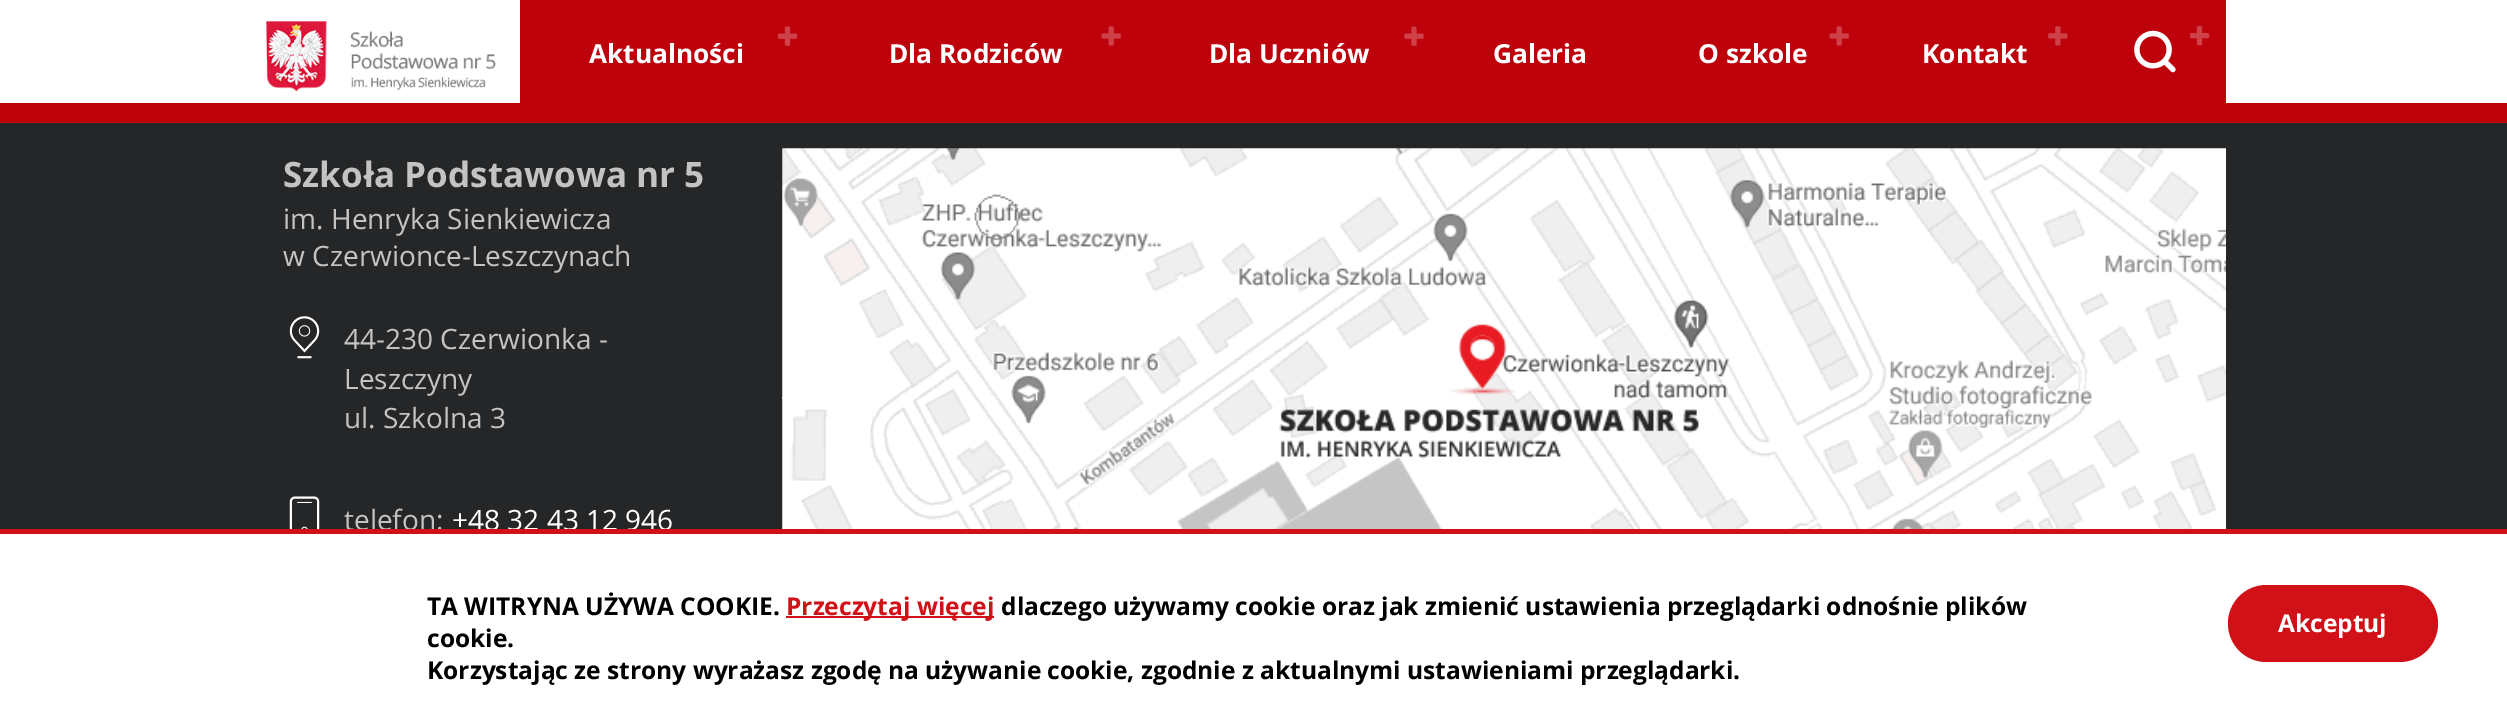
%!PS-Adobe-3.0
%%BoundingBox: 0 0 2507 711
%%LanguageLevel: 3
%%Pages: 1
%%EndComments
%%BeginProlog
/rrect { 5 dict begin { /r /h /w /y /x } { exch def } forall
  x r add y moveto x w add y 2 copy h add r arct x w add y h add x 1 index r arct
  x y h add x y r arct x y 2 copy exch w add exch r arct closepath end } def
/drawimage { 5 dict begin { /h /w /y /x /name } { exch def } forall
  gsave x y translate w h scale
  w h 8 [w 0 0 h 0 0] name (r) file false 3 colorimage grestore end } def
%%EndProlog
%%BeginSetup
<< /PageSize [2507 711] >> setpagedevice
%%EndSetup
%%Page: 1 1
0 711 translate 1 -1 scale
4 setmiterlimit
0.145 0.149 0.157 setrgbcolor
0 0 2507 711 rectfill
1 setgray
0 0 2507 103 rectfill
(images/1.raw) 266 21 230 70 drawimage
0.745 0.008 0.047 setrgbcolor
520 0 1706 103 rectfill
(images/2.raw) 777 26 21 20 drawimage
(images/3.raw) 1101 26 20 20 drawimage
(images/4.raw) 1404 26 20 20 drawimage
(images/3.raw) 1829 26 20 20 drawimage
(images/5.raw) 2048 26 20 20 drawimage
(images/6.raw) 2134 30 42 43 drawimage
(images/7.raw) 2189 26 21 20 drawimage
0 103 2507 20 rectfill
(images/8.raw) 289 316 31 43 drawimage
(images/9.raw) 289 496 31 33 drawimage
(images/10.raw) 782 148 1444 381 drawimage
1 setgray
0 534 2507 177 rectfill
0.816 0.067 0.094 setrgbcolor
786 616 208 2 rectfill
2228 585 210 77 38.5 rrect fill
/OpenSans-Bold [26.25 0 0 -26.25 0 0] selectfont
1 setgray
589 63 moveto (Aktualności) show
889 63 moveto (Dla Rodziców) show
1209 63 moveto (Dla Uczniów) show
1493 63 moveto (Galeria) show
1698 63 moveto (O szkole) show
1922 63 moveto (Kontakt) show
/OpenSans-Bold [35 0 0 -35 0 0] selectfont
0.765 setgray
283 187 moveto (Szkoła Podstawowa nr 5) show
/OpenSans-Regular [28 0 0 -28 0 0] selectfont
283 229 moveto (im. Henryka Sienkiewicza) show
283 266 moveto (w Czerwionce-Leszczynach) show
344 349 moveto (44-230 Czerwionka -) show
344 389 moveto (Leszczyny) show
344 428 moveto (ul. Szkolna 3) show
344 530 moveto (telefon:) show
1 setgray
452 530 moveto (+48 32 43 12 946) show
0.816 0.067 0.094 setrgbcolor
0 529 2507 5 rectfill
/OpenSans-Bold [24.5 0 0 -24.5 0 0] selectfont
0 setgray
427 615 moveto (TA WITRYNA UŻYWA COOKIE.) show
0.816 0.067 0.094 setrgbcolor
786 615 moveto (Przeczytaj więcej) show
0 setgray
1001 615 moveto (dlaczego używamy cookie oraz jak zmienić ustawienia przeglądarki odnośnie plików) show
427 647 moveto (cookie.) show
427 679 moveto (Korzystając ze strony wyrażasz zgodę na używanie cookie, zgodnie z aktualnymi ustawieniami przeglądarki.) show
1 setgray
2278 632 moveto (Akceptuj) show
showpage
%%EOF
